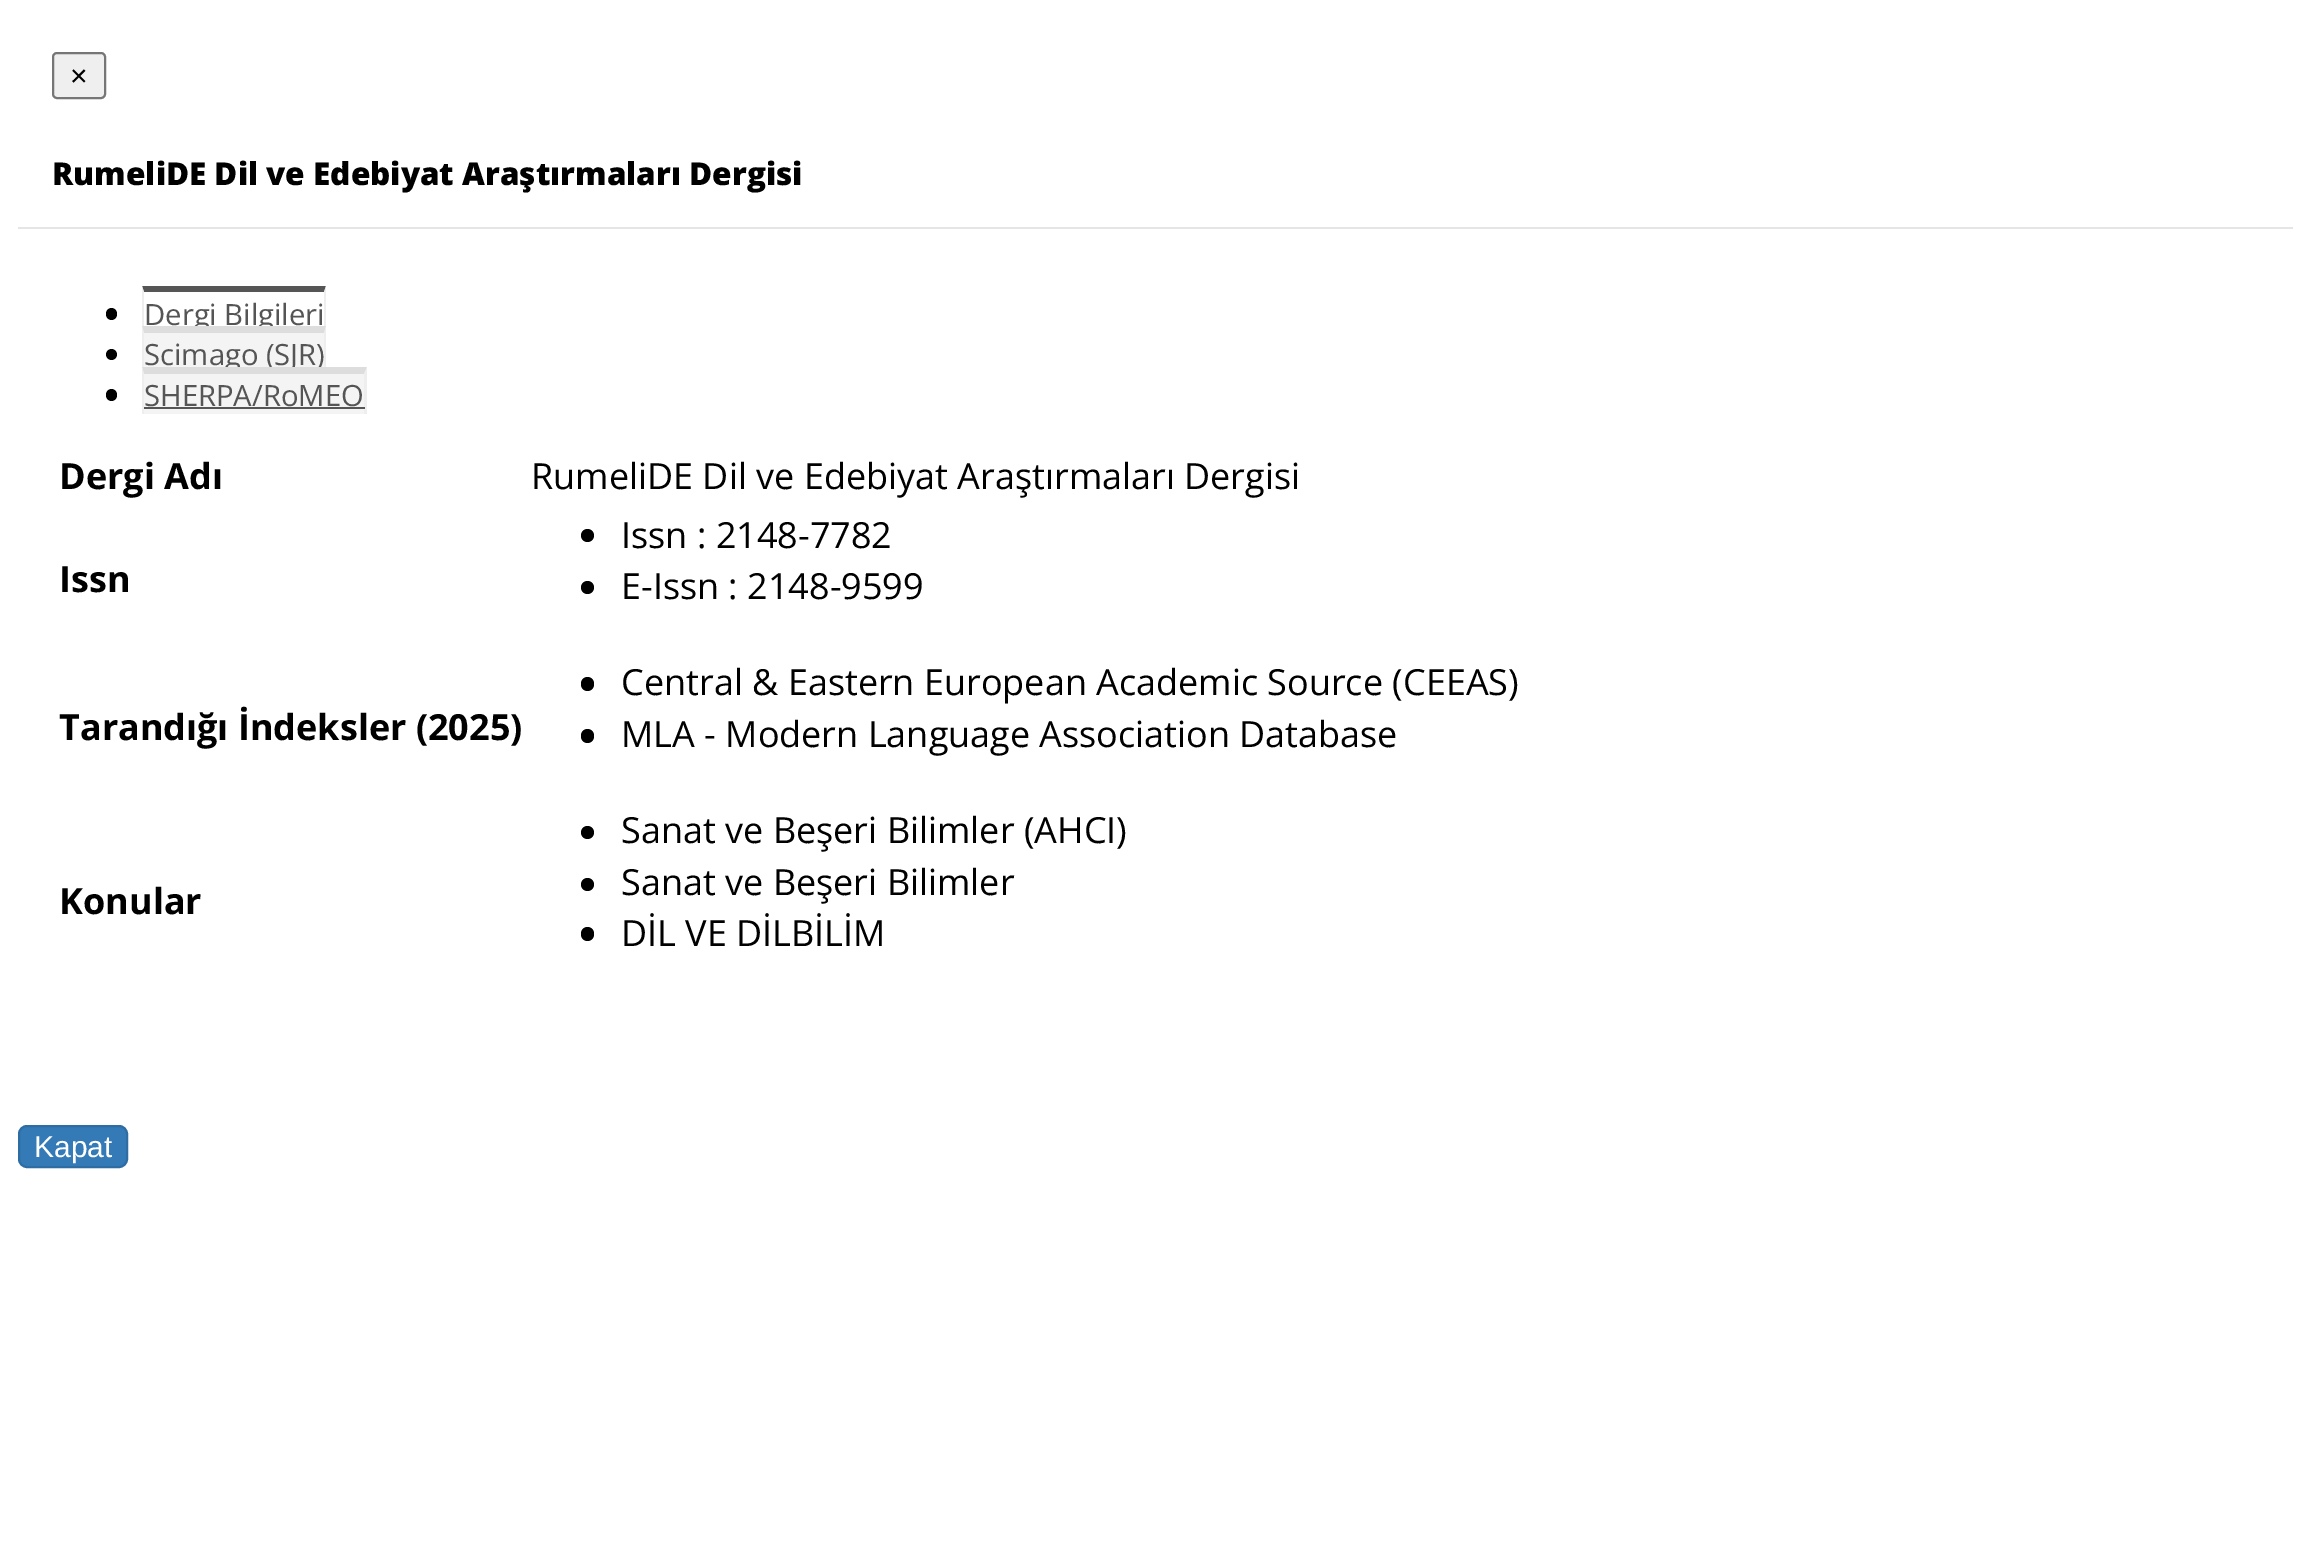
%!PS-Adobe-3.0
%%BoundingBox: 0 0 2310 1559
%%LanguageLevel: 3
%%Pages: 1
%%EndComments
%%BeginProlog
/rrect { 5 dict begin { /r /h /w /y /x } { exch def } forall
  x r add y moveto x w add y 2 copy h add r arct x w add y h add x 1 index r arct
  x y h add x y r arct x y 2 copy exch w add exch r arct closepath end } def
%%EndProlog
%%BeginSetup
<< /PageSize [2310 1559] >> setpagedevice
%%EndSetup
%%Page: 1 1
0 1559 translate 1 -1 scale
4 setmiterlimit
1 setgray
0 0 2310 1559 rectfill
0.898 setgray
18 227 2275 2 rectfill
0.937 setgray
53 53 52 45 4 rrect gsave fill grestore
0.463 setgray
2 setlinewidth
stroke
0 setgray
106 308 11 12 5.5 rrect fill
0.333 setgray
newpath 142 286 moveto 326 286 lineto 324 292 lineto 144 292 lineto closepath fill
0.933 setgray
newpath 326 286 moveto 326 333 lineto 324 333 lineto 324 292 lineto closepath fill
newpath 142 333 moveto 142 286 lineto 144 292 lineto 144 333 lineto closepath fill
0 setgray
newpath 111.5 354.5 5.5 0 360 arc closepath fill
106 389 11 12 5.5 rrect fill
newpath 587.5 535.5 6.5 0 360 arc closepath fill
newpath 587.5 587.5 6.5 0 360 arc closepath fill
581 677 13 14 6.5 rrect fill
581 729 13 14 6.5 rrect fill
newpath 587.5 832.5 6.5 0 360 arc closepath fill
newpath 587.5 884.5 6.5 0 360 arc closepath fill
581 927 13 14 6.5 rrect fill
0.2 0.478 0.718 setrgbcolor
19 1126 108 41 8 rrect gsave fill grestore
0.18 0.427 0.643 setrgbcolor
stroke
/LiberationSans-Regular [30 0 0 -30 0 0] selectfont
0 setgray
70 86 moveto (×) show
/OpenSans-ExtraBold [31.5 0 0 -31.5 0 0] selectfont
52 185 moveto (RumeliDE Dil ve Edebiyat Araştırmaları Dergisi) show
/OpenSans-Regular [29.25 0 0 -29.25 0 0] selectfont
0.333 setgray
144 325 moveto (Dergi Bilgileri) show
0.957 setgray
142 326 184 41 rectfill
0.333 setgray
144 365 moveto (Scimago \(SJR\)) show
0.867 setgray
newpath 142 326 moveto 326 326 lineto 324 333 lineto 144 333 lineto closepath fill
0.933 setgray
newpath 326 326 moveto 326 374 lineto 324 374 lineto 324 333 lineto closepath fill
newpath 142 374 moveto 142 326 lineto 144 333 lineto 144 374 lineto closepath fill
0.957 setgray
142 367 225 47 rectfill
0.333 setgray
144 406 moveto (SHERPA/RoMEO) show
0.867 setgray
newpath 142 367 moveto 367 367 lineto 364 374 lineto 144 374 lineto closepath fill
0.933 setgray
newpath 367 367 moveto 367 414 lineto 364 414 lineto 364 374 lineto closepath fill
newpath 142 414 moveto 142 367 lineto 144 374 lineto 144 414 lineto closepath fill
0.333 setgray
144 407 221 2 rectfill
/OpenSans-Bold [36 0 0 -36 0 0] selectfont
0 setgray
59 489 moveto (Dergi Adı) show
/OpenSans-Regular [36 0 0 -36 0 0] selectfont
531 489 moveto (RumeliDE Dil ve Edebiyat Araştırmaları Dergisi) show
/OpenSans-Bold [36 0 0 -36 0 0] selectfont
59 592 moveto (Issn) show
/OpenSans-Regular [36 0 0 -36 0 0] selectfont
621 548 moveto (Issn : 2148-7782) show
621 599 moveto (E-Issn : 2148-9599) show
/OpenSans-Bold [36 0 0 -36 0 0] selectfont
59 740 moveto (Tarandığı İndeksler \(2025\)) show
/OpenSans-Regular [36 0 0 -36 0 0] selectfont
621 695 moveto (Central & Eastern European Academic Source \(CEEAS\)) show
621 747 moveto (MLA - Modern Language Association Database) show
/OpenSans-Bold [36 0 0 -36 0 0] selectfont
59 914 moveto (Konular) show
/OpenSans-Regular [36 0 0 -36 0 0] selectfont
621 843 moveto (Sanat ve Beşeri Bilimler \(AHCI\)) show
621 895 moveto (Sanat ve Beşeri Bilimler) show
621 946 moveto (DİL VE DİLBİLİM) show
/LiberationSans-Regular [30 0 0 -30 0 0] selectfont
1 setgray
34 1157 moveto (Kapat) show
showpage
%%EOF
